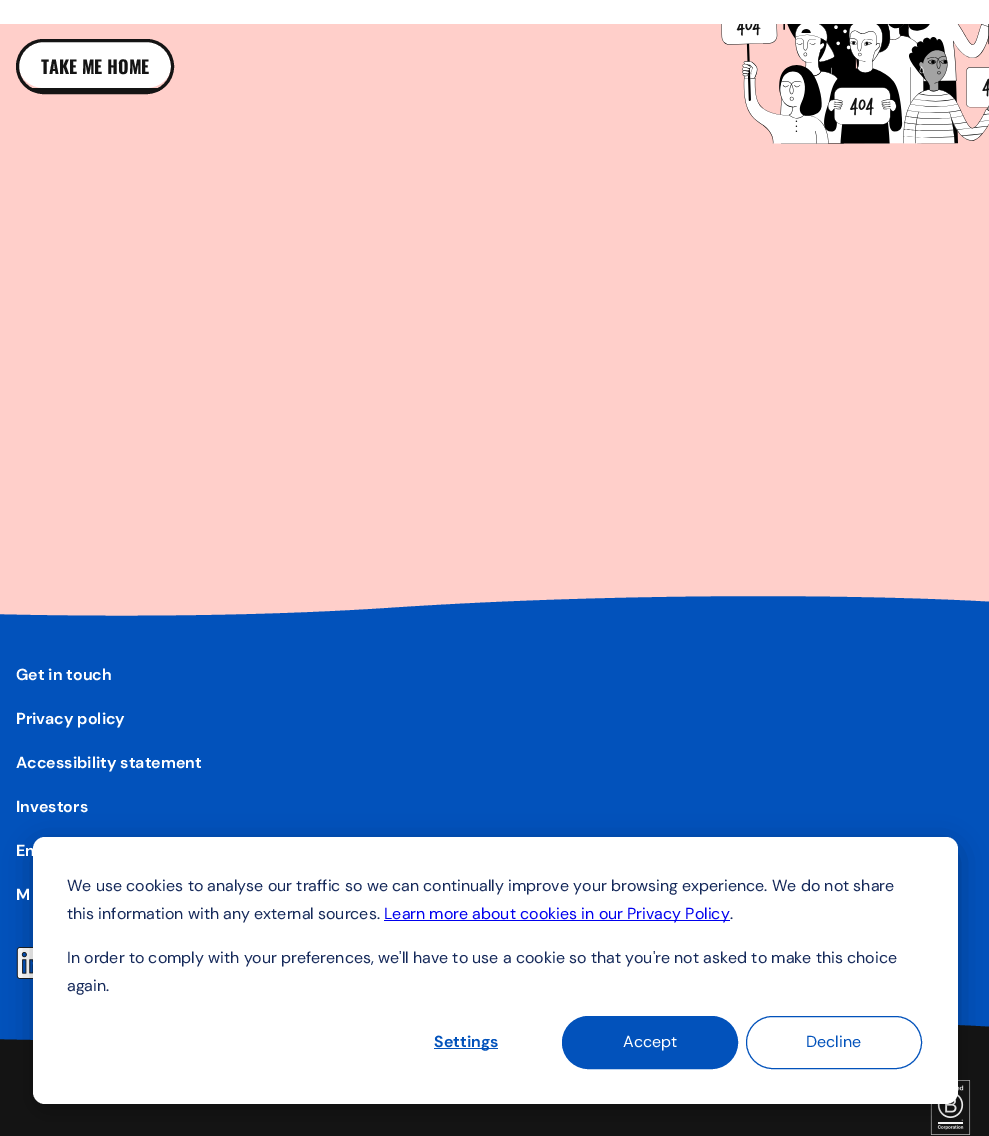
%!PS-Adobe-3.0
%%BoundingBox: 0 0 989 1136
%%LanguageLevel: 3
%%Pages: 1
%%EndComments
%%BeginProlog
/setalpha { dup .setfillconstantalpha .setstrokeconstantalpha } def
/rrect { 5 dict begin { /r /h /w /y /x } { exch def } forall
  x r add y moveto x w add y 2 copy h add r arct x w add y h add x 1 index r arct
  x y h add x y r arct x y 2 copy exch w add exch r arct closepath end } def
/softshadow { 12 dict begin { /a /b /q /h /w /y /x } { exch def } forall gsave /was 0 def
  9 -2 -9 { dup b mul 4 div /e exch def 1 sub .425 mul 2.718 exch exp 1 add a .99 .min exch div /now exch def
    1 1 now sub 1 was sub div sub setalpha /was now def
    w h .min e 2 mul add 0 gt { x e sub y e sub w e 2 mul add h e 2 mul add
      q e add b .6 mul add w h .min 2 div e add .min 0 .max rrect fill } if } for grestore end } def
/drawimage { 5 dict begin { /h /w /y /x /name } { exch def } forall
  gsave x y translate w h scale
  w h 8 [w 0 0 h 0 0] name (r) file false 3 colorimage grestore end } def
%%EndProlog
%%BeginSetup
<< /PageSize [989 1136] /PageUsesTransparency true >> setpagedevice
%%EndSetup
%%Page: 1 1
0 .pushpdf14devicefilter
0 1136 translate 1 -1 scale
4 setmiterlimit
1 0.812 0.792 setrgbcolor
0 0 989 1136 rectfill
1 setgray
0 0 989 24 rectfill
newpath 44 42 moveto 146 42 lineto 160 42 171 53 171 66 curveto 171 78 160 88 146 88 curveto 44 88 lineto 30 88 19 78 19 66 curveto 19 53 30 42 44 42 curveto closepath fill
0.078 setgray
3 setlinewidth
17.5 40.5 155 52 26 rrect stroke
30 88 130 3 rectfill
(images/1.raw) 721 24 268 120 drawimage
0.008 0.322 0.733 setrgbcolor
0 628 989 413 rectfill
gsave
0 588 989 40 rectclip
newpath 388 608 moveto 175 622 -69 614 -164 608 curveto -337 874 lineto 587 907 lineto 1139 817 lineto 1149 751 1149 618 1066 608 curveto 962 595 655 590 388 608 curveto closepath fill
grestore
(images/2.raw) 16 947 17 32 drawimage
gsave
0 1013 989 40 rectclip
0.078 setgray
newpath 388 1033 moveto 175 1047 -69 1039 -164 1033 curveto -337 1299 lineto 587 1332 lineto 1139 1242 lineto 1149 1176 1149 1043 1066 1033 curveto 962 1020 655 1015 388 1033 curveto closepath fill
grestore
0.078 setgray
0 1053 989 83 rectfill
(images/3.raw) 930 1080 41 55 drawimage
0 setgray
33 845 925 267 12 14 0.28 softshadow
1 setgray
33 837 925 267 12 rrect fill
0 0 0.933 setrgbcolor
384 920 346 1 rectfill
0.008 0.322 0.733 setrgbcolor
434 1048 64 1 rectfill
562.5 1016.5 175 52 26 rrect gsave fill grestore
1 setlinewidth
stroke
746.5 1016.5 175 52 26 rrect stroke
/Oswald-Bold [18 0 0 -18 0 0] selectfont
0.078 setgray
41 74 moveto (TAKE ME HOME) show
/DMSans-Bold [16 0 0 -16 0 0] selectfont
1 setgray
16 680 moveto (Get in touch) show
16 724 moveto (Privacy policy) show
16 768 moveto (Accessibility statement) show
16 812 moveto (Investors) show
16 856 moveto (En) show
16 900 moveto (M) show
/DMSans-Regular [16 0 0 -16 0 0] selectfont
0.082 0.161 0.353 setrgbcolor
67 891 moveto (We use cookies to analyse our traffic so we can continually improve your browsing experience. We do not share) show
67 919 moveto (this information with any external sources.) show
0 0 0.933 setrgbcolor
384 919 moveto (Learn more about cookies in our Privacy Policy) show
0.082 0.161 0.353 setrgbcolor
730 919 moveto (.) show
67 963 moveto (In order to comply with your preferences, we'll have to use a cookie so that you're not asked to make this choice) show
67 991 moveto (again.) show
/DMSans-Bold [16 0 0 -16 0 0] selectfont
0.008 0.322 0.733 setrgbcolor
434 1047 moveto (Settings) show
/DMSans-Regular [16 0 0 -16 0 0] selectfont
1 setgray
623 1047 moveto (Accept) show
0.008 0.322 0.733 setrgbcolor
806 1047 moveto (Decline) show
.poppdf14devicefilter showpage
%%EOF
